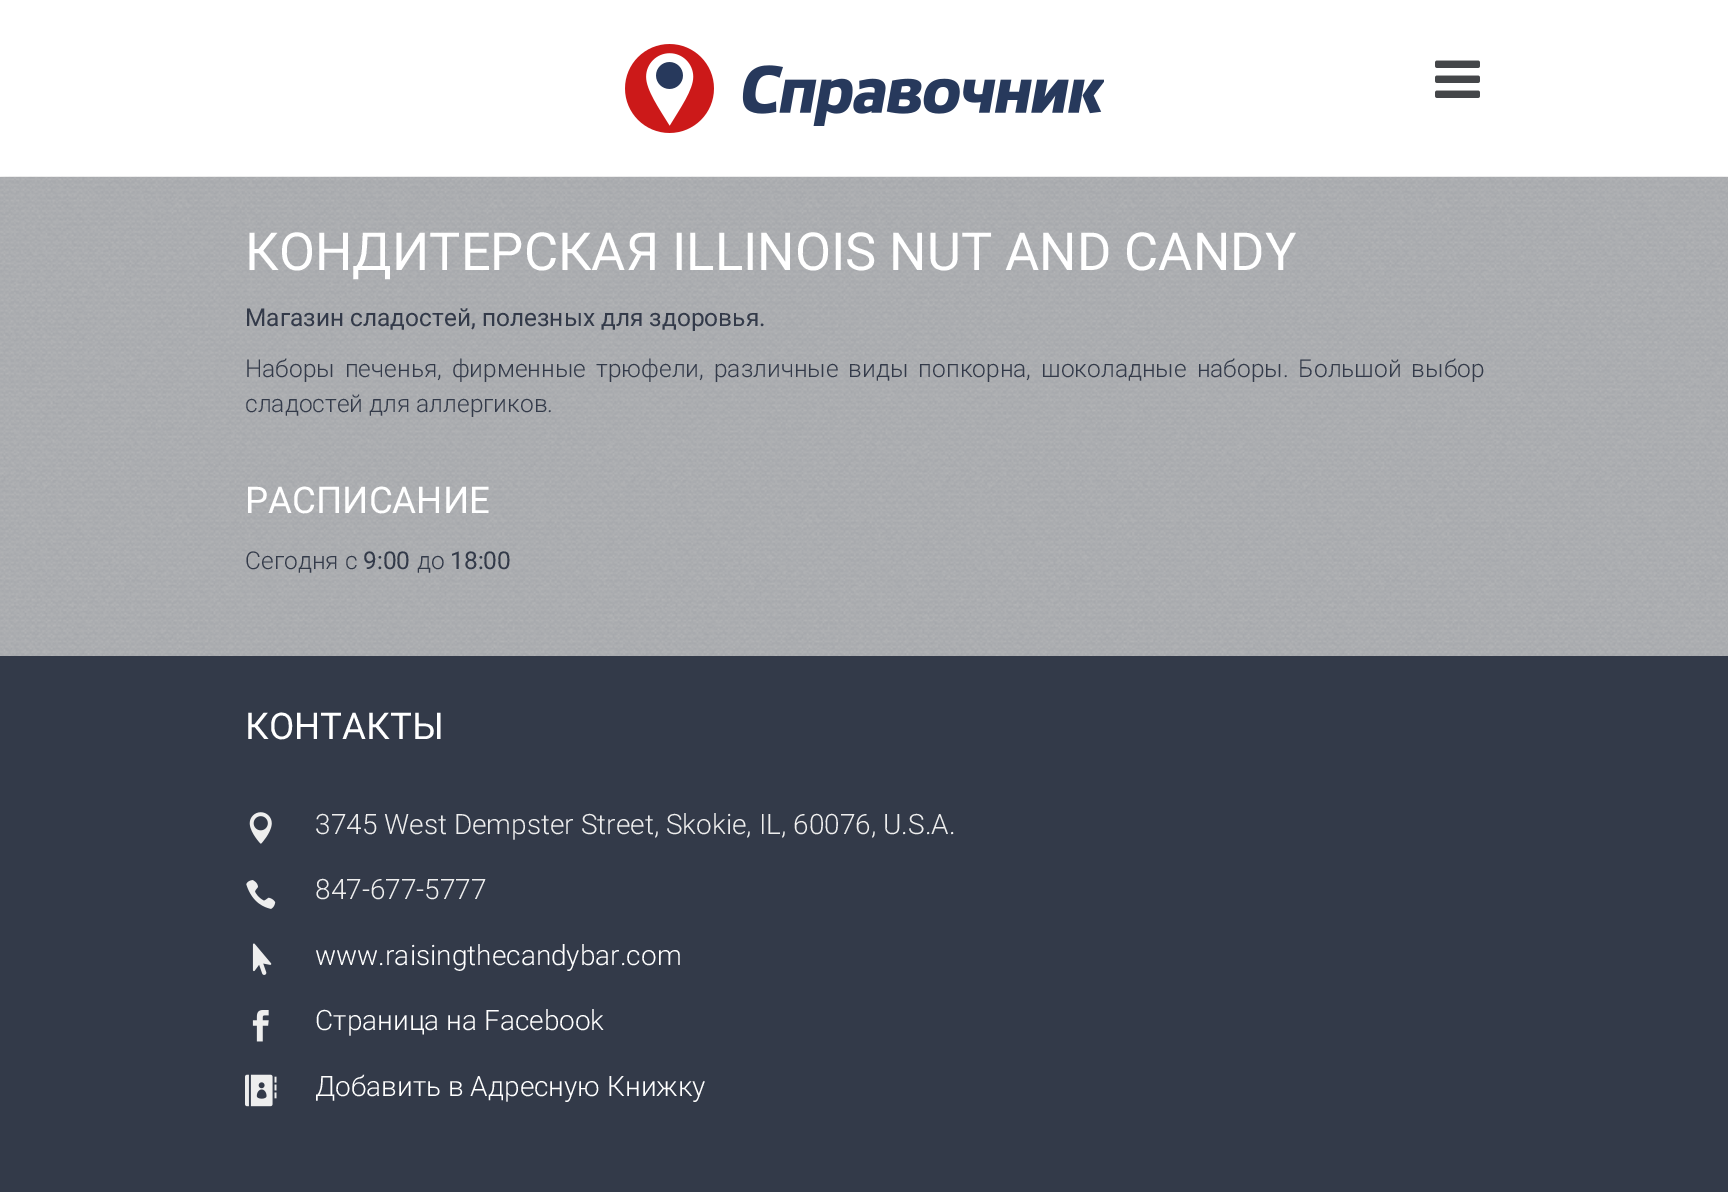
%!PS-Adobe-3.0
%%BoundingBox: 0 0 1728 1192
%%LanguageLevel: 3
%%Pages: 1
%%EndComments
%%BeginProlog
/setalpha { dup .setfillconstantalpha .setstrokeconstantalpha } def
/rrect { 5 dict begin { /r /h /w /y /x } { exch def } forall
  x r add y moveto x w add y 2 copy h add r arct x w add y h add x 1 index r arct
  x y h add x y r arct x y 2 copy exch w add exch r arct closepath end } def
/softshadow { 12 dict begin { /a /b /q /h /w /y /x } { exch def } forall gsave /was 0 def
  9 -2 -9 { dup b mul 4 div /e exch def 1 sub .425 mul 2.718 exch exp 1 add a .99 .min exch div /now exch def
    1 1 now sub 1 was sub div sub setalpha /was now def
    w h .min e 2 mul add 0 gt { x e sub y e sub w e 2 mul add h e 2 mul add
      q e add b .6 mul add w h .min 2 div e add .min 0 .max rrect fill } if } for grestore end } def
/drawimage { 5 dict begin { /h /w /y /x /name } { exch def } forall
  gsave x y translate w h scale
  w h 8 [w 0 0 h 0 0] name (r) file false 3 colorimage grestore end } def
%%EndProlog
%%BeginSetup
<< /PageSize [1728 1192] /PageUsesTransparency true >> setpagedevice
%%EndSetup
%%Page: 1 1
0 .pushpdf14devicefilter
0 1192 translate 1 -1 scale
4 setmiterlimit
1 setgray
0 0 1728 1192 rectfill
gsave
newpath 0 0 moveto 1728 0 lineto 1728 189 lineto 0 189 lineto closepath 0 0 moveto 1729 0 lineto 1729 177 lineto 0 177 lineto closepath eoclip newpath
0 setgray
0 0 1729 177 0 3.5 0.4 softshadow
grestore
(images/1.raw) 625 44 479 89 drawimage
(images/2.raw) 1435 60 45 38 drawimage
0.631 0.643 0.663 setrgbcolor
0 177 1728 479 rectfill
(images/3.raw) 0 176 1728 480 drawimage
0.2 0.227 0.286 setrgbcolor
0 656 1728 536 rectfill
(images/4.raw) 249 812 23 32 drawimage
(images/5.raw) 246 880 30 29 drawimage
(images/6.raw) 252 943 20 32 drawimage
(images/7.raw) 252 1010 17 32 drawimage
(images/8.raw) 245 1074 32 33 drawimage
/Roboto-Regular [52.5 0 0 -52.5 0 0] selectfont
1 setgray
245 270 moveto (КОНДИТЕРСКАЯ ILLINOIS NUT AND CANDY) show
/Roboto-Regular [24.5 0 0 -24.5 0 0] selectfont
0.2 0.227 0.286 setrgbcolor
245 326 moveto (Магазин сладостей, полезных для здоровья.) show
/Roboto-Light [24.5 0 0 -24.5 0 0] selectfont
245 377 moveto 4 0 32 (Наборы печенья, фирменные трюфели, различные виды попкорна, шоколадные наборы. Большой выбор) widthshow
245 412 moveto (сладостей для аллергиков.) show
/Roboto-Regular [36.75 0 0 -36.75 0 0] selectfont
1 setgray
245 513 moveto (РАСПИСАНИЕ) show
/Roboto-Light [24.5 0 0 -24.5 0 0] selectfont
0.2 0.227 0.286 setrgbcolor
245 569 moveto (Сегодня с) show
/Roboto-Regular [24.5 0 0 -24.5 0 0] selectfont
363 569 moveto (9:00) show
/Roboto-Light [24.5 0 0 -24.5 0 0] selectfont
417 569 moveto (до) show
/Roboto-Regular [24.5 0 0 -24.5 0 0] selectfont
450 569 moveto (18:00) show
/Roboto-Regular [36.75 0 0 -36.75 0 0] selectfont
1 setgray
245 739 moveto (КОНТАКТЫ) show
/Roboto-Light [28 0 0 -28 0 0] selectfont
0.933 setgray
315 834 moveto (3745 West Dempster Street, Skokie, IL, 60076, U.S.A.) show
315 899 moveto (847-677-5777) show
1 setgray
315 965 moveto (www.raisingthecandybar.com) show
315 1030 moveto (Страница на Facebook) show
315 1096 moveto (Добавить в Адресную Книжку) show
.poppdf14devicefilter showpage
%%EOF
